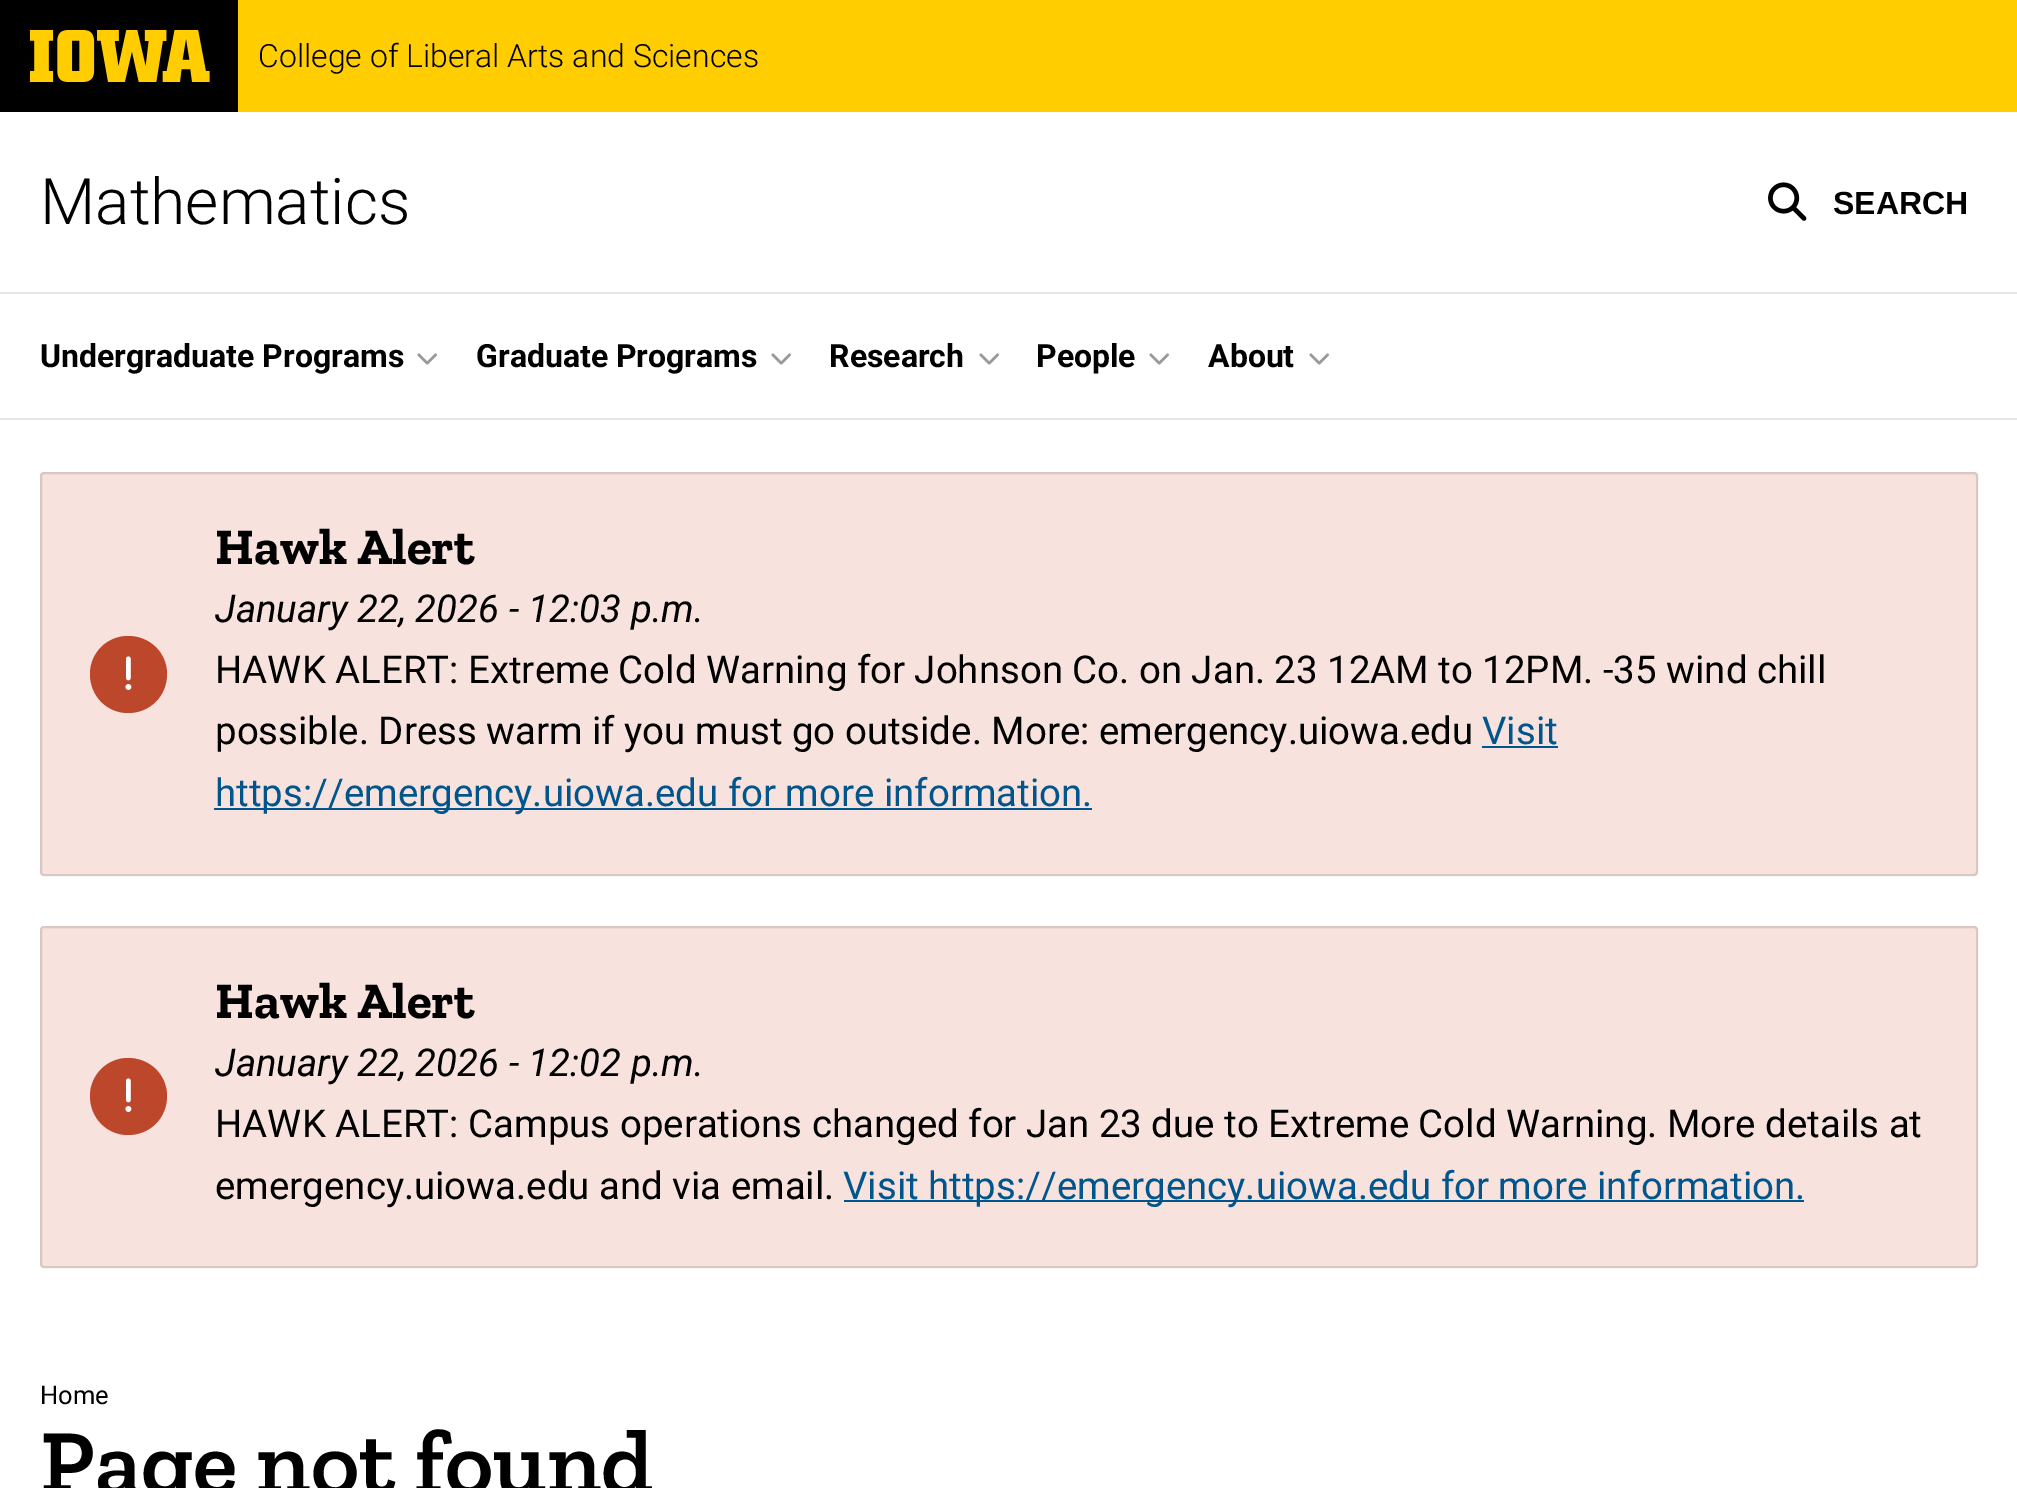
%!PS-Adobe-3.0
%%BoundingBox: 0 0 2017 1488
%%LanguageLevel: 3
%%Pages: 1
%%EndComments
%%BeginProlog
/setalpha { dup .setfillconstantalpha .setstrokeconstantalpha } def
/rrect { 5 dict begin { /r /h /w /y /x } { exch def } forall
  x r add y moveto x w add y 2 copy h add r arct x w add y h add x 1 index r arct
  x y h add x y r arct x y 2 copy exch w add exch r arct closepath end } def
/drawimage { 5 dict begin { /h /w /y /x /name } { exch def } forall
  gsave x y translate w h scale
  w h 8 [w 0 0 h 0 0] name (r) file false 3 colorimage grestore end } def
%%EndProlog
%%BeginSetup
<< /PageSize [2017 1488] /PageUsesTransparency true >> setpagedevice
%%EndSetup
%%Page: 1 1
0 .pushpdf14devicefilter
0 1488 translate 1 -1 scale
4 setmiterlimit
1 setgray
0 0 2017 1488 rectfill
1 0.804 0 setrgbcolor
238 0 1779 112 rectfill
0 setgray
0 0 238 112 rectfill
(images/1.raw) 30 30 180 52 drawimage
0.902 0.898 0.898 setrgbcolor
0 292 2017 2 rectfill
(images/2.raw) 1768 182 39 39 drawimage
0 418 2017 2 rectfill
(images/3.raw) 417 353 20 12 drawimage
(images/3.raw) 771 353 20 12 drawimage
(images/3.raw) 979 353 20 12 drawimage
(images/3.raw) 1149 353 20 12 drawimage
(images/3.raw) 1309 353 20 12 drawimage
0.969 0.886 0.867 setrgbcolor
40 472 1938 404 4 rrect fill
0.12 setalpha
0 setgray
2 setlinewidth
41 473 1936 402 3 rrect stroke
1 setalpha
0.741 0.278 0.165 setrgbcolor
newpath 128 713 moveto 150 713 167 696 167 674 curveto 167 653 150 636 128 636 curveto 107 636 90 653 90 674 curveto 90 696 107 713 128 713 curveto closepath fill
(images/4.raw) 125 656 7 34 drawimage
0 0.333 0.549 setrgbcolor
1482 746 76 2 rectfill
214 808 878 2 rectfill
0.969 0.886 0.867 setrgbcolor
40 926 1938 342 4 rrect fill
0.12 setalpha
0 setgray
41 927 1936 340 3 rrect stroke
1 setalpha
0.741 0.278 0.165 setrgbcolor
newpath 128 1135 moveto 150 1135 167 1118 167 1096 curveto 167 1075 150 1058 128 1058 curveto 107 1058 90 1075 90 1096 curveto 90 1118 107 1135 128 1135 curveto closepath fill
(images/4.raw) 125 1078 7 34 drawimage
0 0.333 0.549 setrgbcolor
844 1200 960 2 rectfill
/Roboto-Light [32 0 0 -32 0 0] selectfont
0 setgray
258 67 moveto (College of Liberal Arts and Sciences) show
/Roboto-Light [64 0 0 -64 0 0] selectfont
40 224 moveto (Mathematics) show
/LiberationSans-Bold [32 0 0 -32 0 0] selectfont
1833 214 moveto (SEARCH) show
/Roboto-Bold [32 0 0 -32 0 0] selectfont
40 367 moveto (Undergraduate Programs) show
476 367 moveto (Graduate Programs) show
829 367 moveto (Research) show
1036 367 moveto (People) show
1208 367 moveto (About) show
/ZillaSlab-Bold [51.25 0 0 -51.25 0 0] selectfont
215 564 moveto (Hawk Alert) show
/Roboto-Italic [38.4 0 0 -38.4 0 0] selectfont
215 622 moveto (January 22, 2026 - 12:03 p.m.) show
/Roboto-Regular [38.4 0 0 -38.4 0 0] selectfont
215 683 moveto (HAWK ALERT: Extreme Cold Warning for Johnson Co. on Jan. 23 12AM to 12PM. -35 wind chill) show
215 744 moveto (possible. Dress warm if you must go outside. More: emergency.uiowa.edu) show
0 0.333 0.549 setrgbcolor
1482 744 moveto (Visit) show
215 806 moveto (https://emergency.uiowa.edu for more information.) show
/ZillaSlab-Bold [51.25 0 0 -51.25 0 0] selectfont
0 setgray
215 1018 moveto (Hawk Alert) show
/Roboto-Italic [38.4 0 0 -38.4 0 0] selectfont
215 1076 moveto (January 22, 2026 - 12:02 p.m.) show
/Roboto-Regular [38.4 0 0 -38.4 0 0] selectfont
215 1137 moveto (HAWK ALERT: Campus operations changed for Jan 23 due to Extreme Cold Warning. More details at) show
215 1199 moveto (emergency.uiowa.edu and via email.) show
0 0.333 0.549 setrgbcolor
843 1199 moveto (Visit https://emergency.uiowa.edu for more information.) show
/Roboto-Regular [25.5 0 0 -25.5 0 0] selectfont
0 setgray
40 1404 moveto (Home) show
/ZillaSlab-SemiBold [93 0 0 -93 0 0] selectfont
40 1494 moveto (Page not found) show
.poppdf14devicefilter showpage
%%EOF
